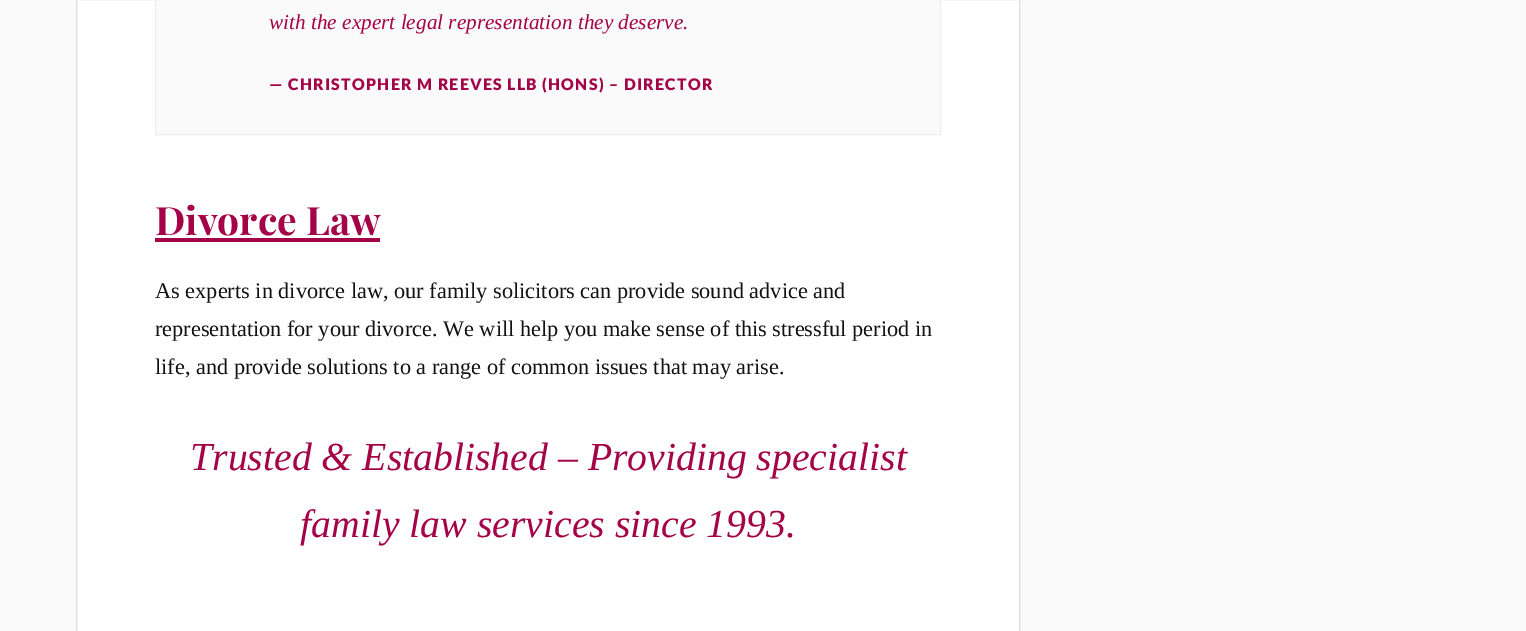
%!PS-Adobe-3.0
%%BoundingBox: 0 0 1526 631
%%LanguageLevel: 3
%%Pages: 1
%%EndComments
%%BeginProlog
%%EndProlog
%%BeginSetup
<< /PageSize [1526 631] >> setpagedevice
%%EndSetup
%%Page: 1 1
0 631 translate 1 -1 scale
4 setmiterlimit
0.98 setgray
0 0 1526 631 rectfill
1 setgray
newpath 76.5 -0.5 moveto 1019.5 -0.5 lineto 1019.5 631.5 lineto 76.5 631.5 lineto closepath gsave fill grestore
0.867 setgray
stroke
0.98 setgray
newpath 155.5 -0.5 moveto 940.5 -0.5 lineto 940.5 134.5 lineto 155.5 134.5 lineto closepath gsave fill grestore
0.933 setgray
stroke
0.647 0.012 0.278 setrgbcolor
155 238 225 4 rectfill
/LiberationSerif-Italic [21.25 0 0 -21.25 0 0] selectfont
269 29 moveto (with the expert legal representation they deserve.) show
/Lato-Black [15.9 0 0 -15.9 0 0] selectfont
269 90 moveto 1.25 0 (— CHRISTOPHER M REEVES LLB \(HONS\) – DIRECTOR) ashow
/PlayfairDisplay-Bold [39 0 0 -39 0 0] selectfont
155 235 moveto (Divorce Law) show
/LiberationSerif-Regular [22.3 0 0 -22.3 0 0] selectfont
0.067 setgray
155 298 moveto (As experts in divorce law, our family solicitors can provide sound advice and) show
155 336 moveto (representation for your divorce. We will help you make sense of this stressful period in) show
155 374 moveto (life, and provide solutions to a range of common issues that may arise.) show
/LiberationSerif-Italic [39.75 0 0 -39.75 0 0] selectfont
0.647 0.012 0.278 setrgbcolor
190 470 moveto (Trusted & Established – Providing specialist) show
300 537 moveto (family law services since 1993.) show
showpage
%%EOF
